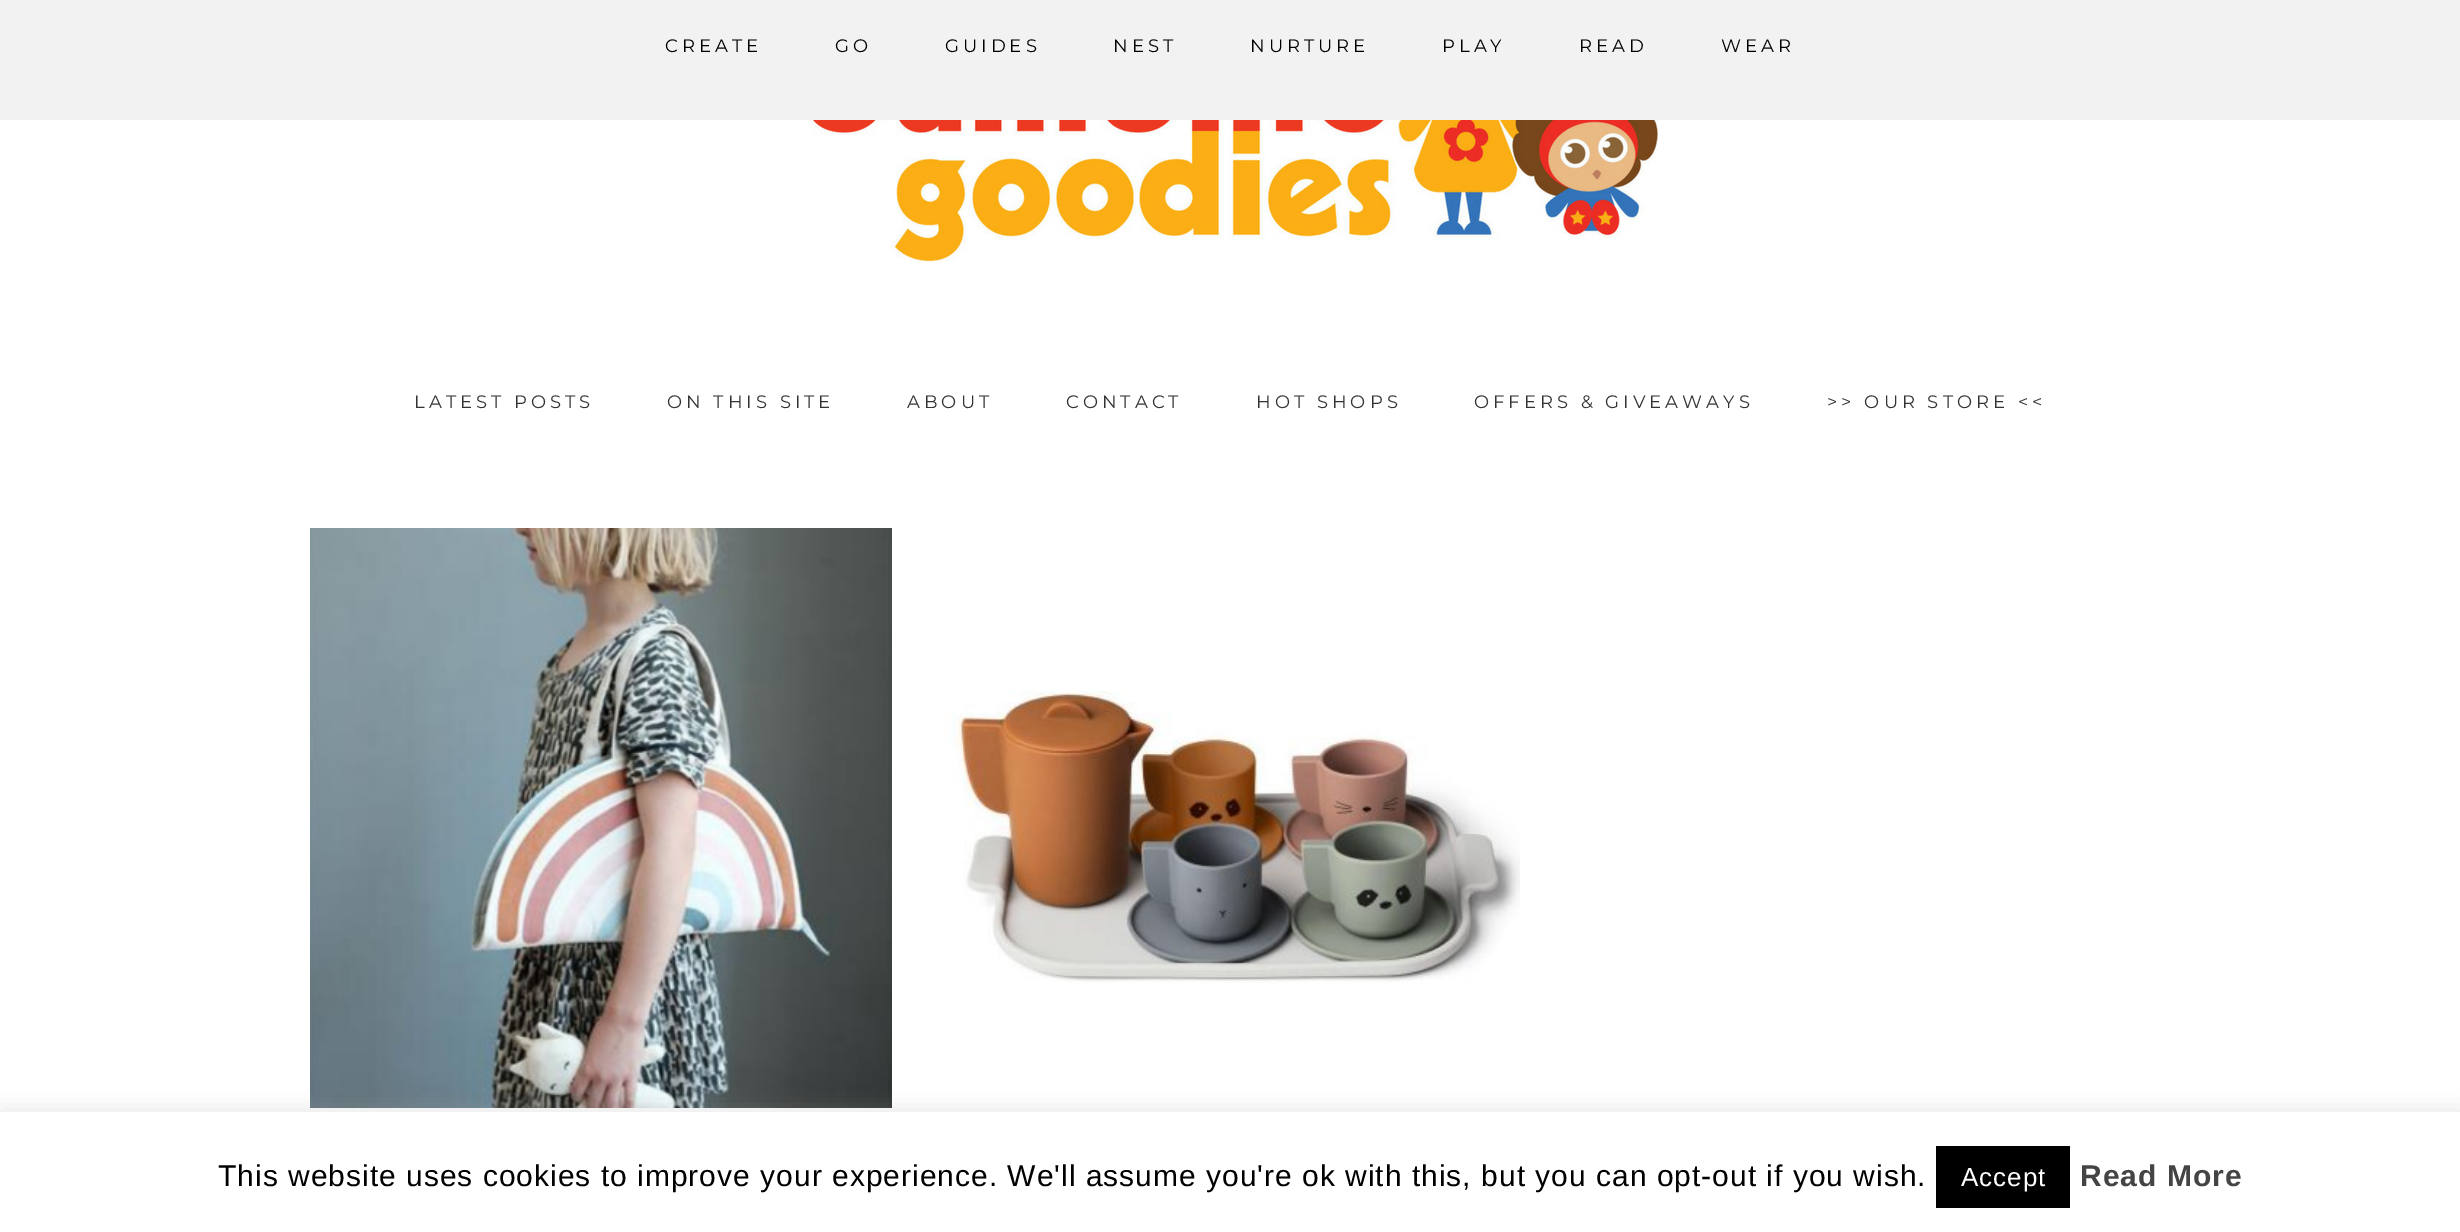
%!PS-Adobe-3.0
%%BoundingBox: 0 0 2460 1232
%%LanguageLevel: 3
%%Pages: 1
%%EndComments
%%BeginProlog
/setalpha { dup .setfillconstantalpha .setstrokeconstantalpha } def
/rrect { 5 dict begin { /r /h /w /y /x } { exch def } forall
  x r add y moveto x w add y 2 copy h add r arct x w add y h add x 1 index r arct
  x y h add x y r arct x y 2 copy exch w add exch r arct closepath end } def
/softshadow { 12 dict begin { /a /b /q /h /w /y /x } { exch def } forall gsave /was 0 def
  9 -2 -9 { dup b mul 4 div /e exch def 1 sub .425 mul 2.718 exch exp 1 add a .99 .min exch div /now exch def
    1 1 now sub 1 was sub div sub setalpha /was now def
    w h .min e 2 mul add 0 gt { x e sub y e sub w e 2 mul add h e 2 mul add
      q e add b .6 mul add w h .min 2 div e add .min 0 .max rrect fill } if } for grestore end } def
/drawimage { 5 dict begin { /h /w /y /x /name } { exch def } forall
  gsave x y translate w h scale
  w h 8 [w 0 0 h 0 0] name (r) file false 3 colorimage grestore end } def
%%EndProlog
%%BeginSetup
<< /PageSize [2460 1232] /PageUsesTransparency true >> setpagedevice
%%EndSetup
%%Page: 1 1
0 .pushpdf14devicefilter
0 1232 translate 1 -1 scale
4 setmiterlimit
1 setgray
0 0 2460 1232 rectfill
0.949 setgray
0 0 2460 120 rectfill
(images/1.raw) 803 120 855 142 drawimage
(images/2.raw) 310 528 582 580 drawimage
(images/3.raw) 944 690 576 293 drawimage
0.675 0.671 0.671 setrgbcolor
0 1110 2460 120 0 10 0.3 softshadow
1 setgray
0 1112 2460 120 rectfill
0 setgray
1936 1146 134 62 rectfill
/Montserrat-Thin [18 0 0 -18 0 0] selectfont
665 52 moveto 4 0 (CREATE) ashow
835 52 moveto 4 0 (GO) ashow
945 52 moveto 4 0 (GUIDES) ashow
1113 52 moveto 4 0 (NEST) ashow
1250 52 moveto 4 0 (NURTURE) ashow
1442 52 moveto 4 0 (PLAY) ashow
1579 52 moveto 4 0 (READ) ashow
1721 52 moveto 4 0 (WEAR) ashow
0.2 setgray
414 408 moveto 4 0 (LATEST POSTS) ashow
667 408 moveto 4 0 (ON THIS SITE) ashow
907 408 moveto 4 0 (ABOUT) ashow
1066 408 moveto 4 0 (CONTACT) ashow
1256 408 moveto 4 0 (HOT SHOPS) ashow
1474 408 moveto 4 0 (OFFERS & GIVEAWAYS) ashow
1827 408 moveto 4 0 (>> OUR STORE <<) ashow
/LiberationSans-Regular [30 0 0 -30 0 0] selectfont
0 setgray
218 1186 moveto 1 0 (This website uses cookies to improve your experience. We'll assume you're ok with this, but you can opt-out if you wish.) ashow
/LiberationSans-Regular [26 0 0 -26 0 0] selectfont
1 setgray
1961 1186 moveto 1 0 (Accept) ashow
/LiberationSans-Bold [30 0 0 -30 0 0] selectfont
0.267 setgray
2080 1186 moveto 1 0 (Read More) ashow
.poppdf14devicefilter showpage
%%EOF
